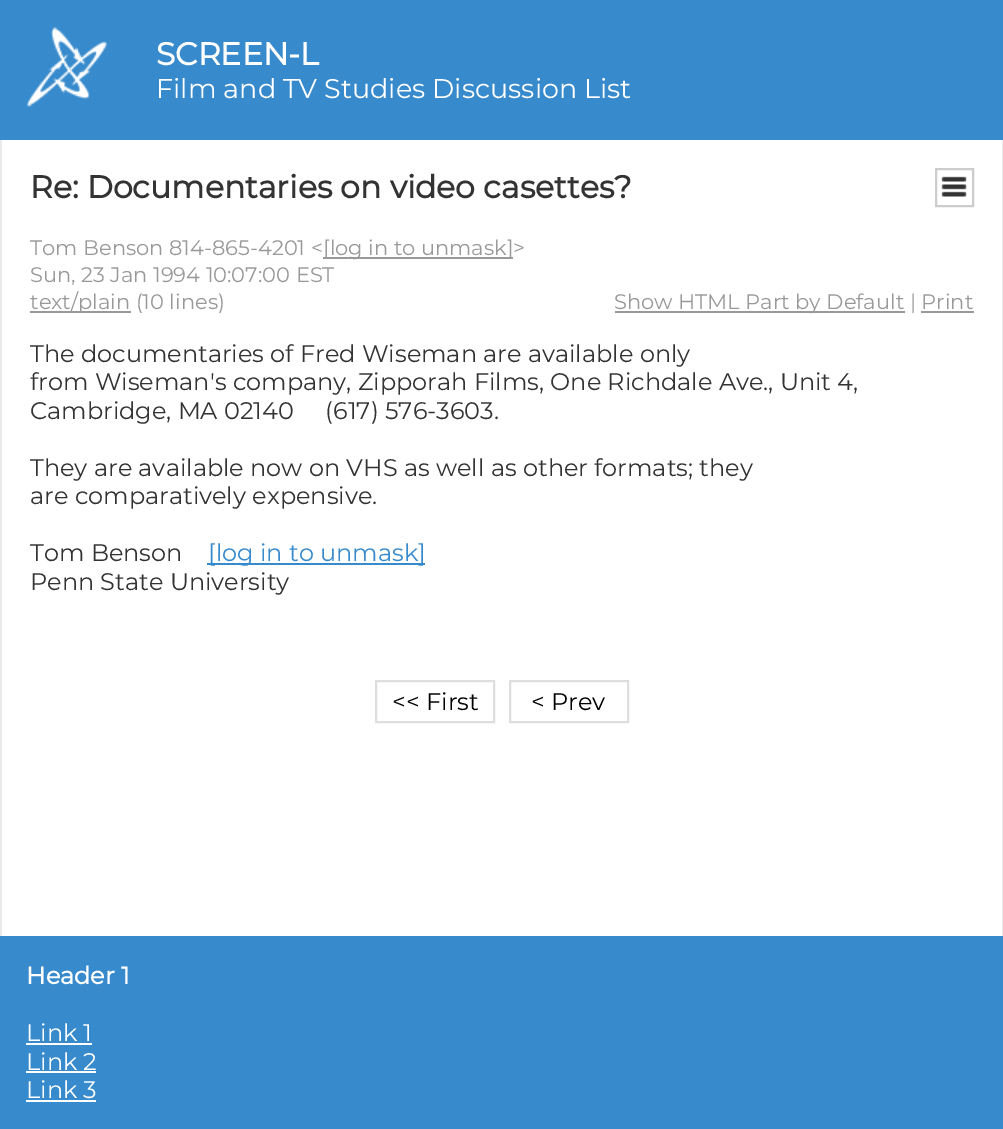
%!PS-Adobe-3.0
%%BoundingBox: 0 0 1003 1129
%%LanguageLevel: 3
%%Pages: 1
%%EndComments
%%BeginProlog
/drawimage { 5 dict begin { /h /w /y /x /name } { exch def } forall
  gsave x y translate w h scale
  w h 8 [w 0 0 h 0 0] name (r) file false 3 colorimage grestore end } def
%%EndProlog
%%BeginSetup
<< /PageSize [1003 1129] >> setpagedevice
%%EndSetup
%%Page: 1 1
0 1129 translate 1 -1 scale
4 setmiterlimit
0.216 0.541 0.8 setrgbcolor
0 0 1003 1129 rectfill
(images/1.raw) 26 26 81 81 drawimage
1 setgray
2 140 1000 796 rectfill
0.918 setgray
1002 140 1 796 rectfill
0 140 2 796 rectfill
0.8 setgray
2 setlinewidth
936 169 37 37 rectstroke
(images/2.raw) 941 176 26 21 drawimage
0.6 setgray
323 257 190 2 rectfill
30 311 101 2 rectfill
615 311 290 2 rectfill
921 311 53 2 rectfill
0.216 0.541 0.8 setrgbcolor
207 563 218 2 rectfill
0.871 setgray
376 681 118 41 rectstroke
510 681 118 41 rectstroke
1 setgray
26 1043 66 2 rectfill
26 1071 70 2 rectfill
26 1100 70 2 rectfill
/Montserrat-Bold [31.5 0 0 -31.5 0 0] selectfont
156 65 moveto (SCREEN-L) show
/Montserrat-Thin [27 0 0 -27 0 0] selectfont
156 98 moveto (Film and TV Studies Discussion List) show
/Montserrat-Bold [31.5 0 0 -31.5 0 0] selectfont
0.2 setgray
30 198 moveto (Re: Documentaries on video casettes?) show
/Montserrat-Thin [21 0 0 -21 0 0] selectfont
0.6 setgray
30 255 moveto (Tom Benson 814-865-4201 <) show
323 255 moveto ([log in to unmask]>) show
30 282 moveto (Sun, 23 Jan 1994 10:07:00 EST) show
30 309 moveto (text/plain \(10 lines\)) show
614 309 moveto (Show HTML Part by Default | Print) show
/Montserrat-Thin [24 0 0 -24 0 0] selectfont
0.2 setgray
30 362 moveto (The documentaries of Fred Wiseman are available only) show
30 390 moveto (from Wiseman's company, Zipporah Films, One Richdale Ave., Unit 4,) show
30 419 moveto (Cambridge, MA 02140     \(617\) 576-3603.) show
30 476 moveto (They are available now on VHS as well as other formats; they) show
30 504 moveto (are comparatively expensive.) show
30 561 moveto (Tom Benson) show
0.216 0.541 0.8 setrgbcolor
208 561 moveto ([log in to unmask]) show
0.2 setgray
30 590 moveto (Penn State University) show
0 setgray
392 710 moveto (<< First) show
531 710 moveto (< Prev) show
/Montserrat-Bold [24 0 0 -24 0 0] selectfont
1 setgray
26 984 moveto (Header 1) show
/Montserrat-Thin [24 0 0 -24 0 0] selectfont
26 1041 moveto (Link 1) show
26 1070 moveto (Link 2) show
26 1098 moveto (Link 3) show
showpage
%%EOF
